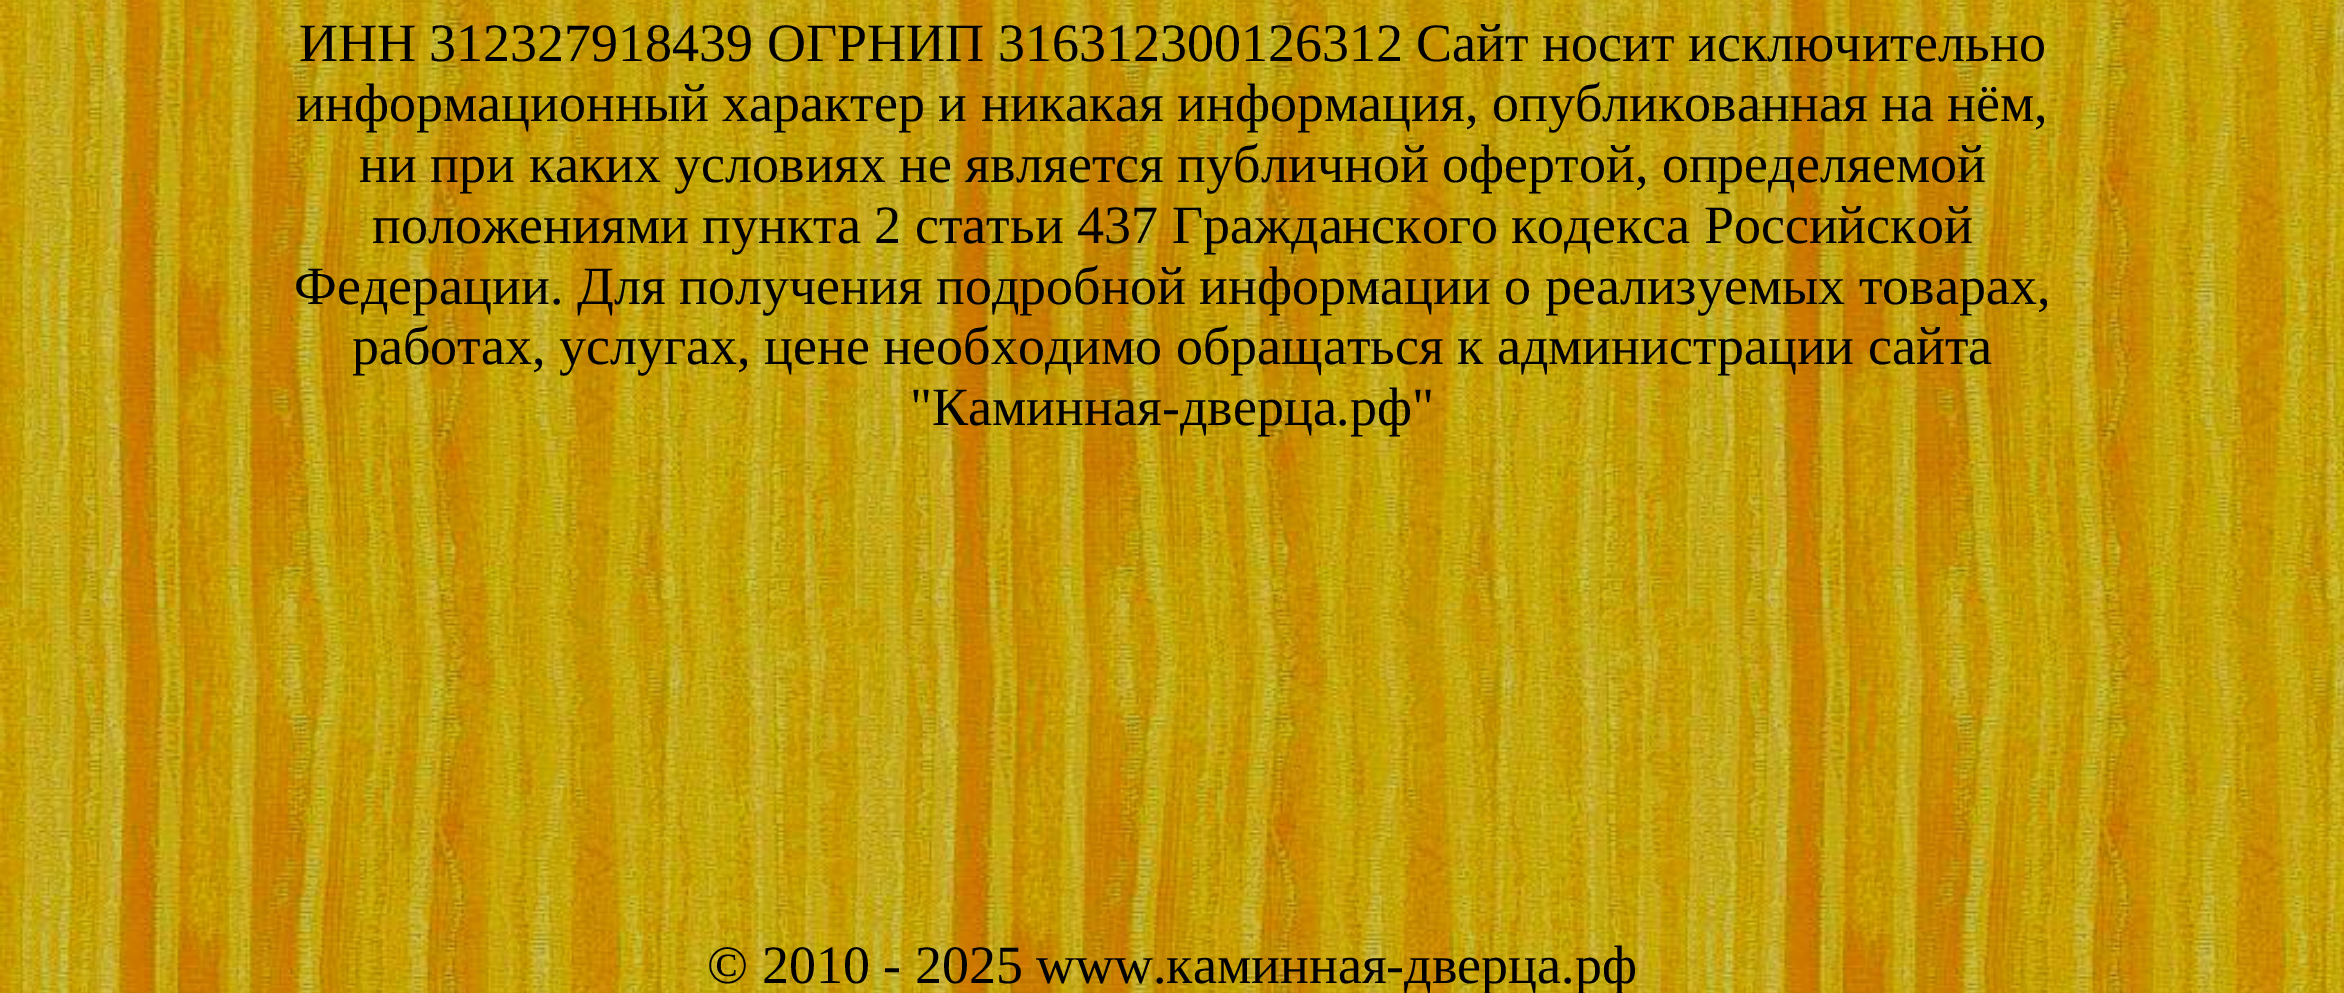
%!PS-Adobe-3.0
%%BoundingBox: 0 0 2344 993
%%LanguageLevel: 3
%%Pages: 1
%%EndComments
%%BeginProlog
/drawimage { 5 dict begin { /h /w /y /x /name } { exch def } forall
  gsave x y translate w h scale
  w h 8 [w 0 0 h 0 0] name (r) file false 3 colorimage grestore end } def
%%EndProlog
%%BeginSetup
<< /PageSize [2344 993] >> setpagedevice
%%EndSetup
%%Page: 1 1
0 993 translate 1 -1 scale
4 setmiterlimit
1 setgray
0 0 2344 993 rectfill
(images/1.raw) 0 0 2344 993 drawimage
/LiberationSerif-Regular [54 0 0 -54 0 0] selectfont
0 setgray
299 61 moveto (ИНН 312327918439 ОГРНИП 316312300126312 Сайт носит исключительно) show
296 121 moveto (информационный характер и никакая информация, опубликованная на нём,) show
359 182 moveto (ни при каких условиях не является публичной офертой, определяемой) show
372 243 moveto (положениями пункта 2 статьи 437 Гражданского кодекса Российской) show
294 304 moveto (Федерации. Для получения подробной информации о реализуемых товарах,) show
352 364 moveto (работах, услугах, цене необходимо обращаться к администрации сайта) show
910 425 moveto ("Каминная-дверца.рф") show
707 983 moveto (© 2010 - 2025 www.каминная-дверца.рф) show
showpage
%%EOF
